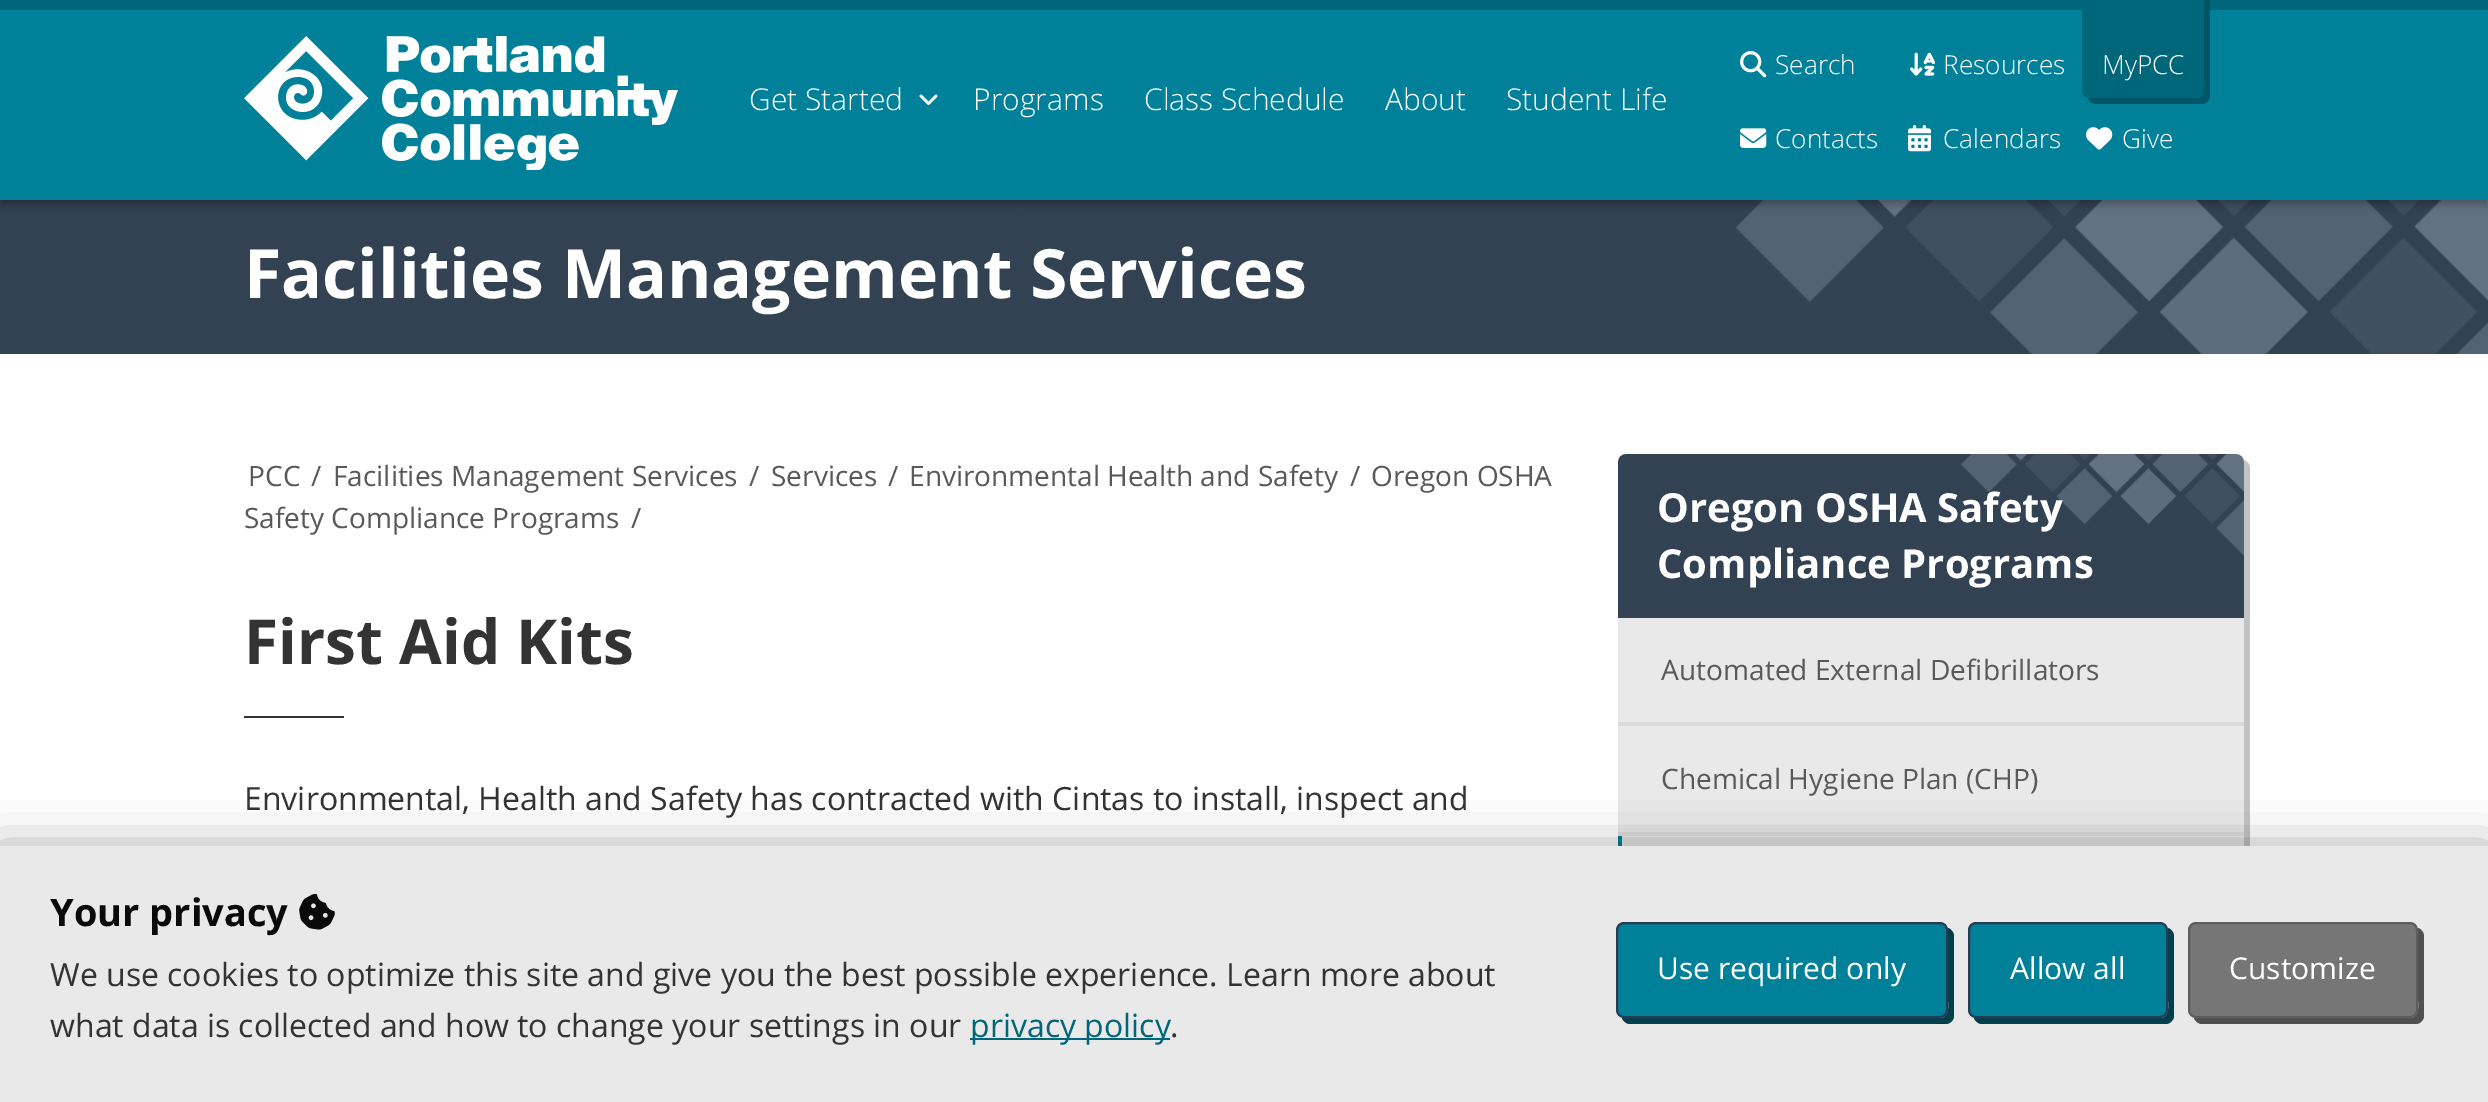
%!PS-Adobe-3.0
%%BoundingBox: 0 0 2488 1102
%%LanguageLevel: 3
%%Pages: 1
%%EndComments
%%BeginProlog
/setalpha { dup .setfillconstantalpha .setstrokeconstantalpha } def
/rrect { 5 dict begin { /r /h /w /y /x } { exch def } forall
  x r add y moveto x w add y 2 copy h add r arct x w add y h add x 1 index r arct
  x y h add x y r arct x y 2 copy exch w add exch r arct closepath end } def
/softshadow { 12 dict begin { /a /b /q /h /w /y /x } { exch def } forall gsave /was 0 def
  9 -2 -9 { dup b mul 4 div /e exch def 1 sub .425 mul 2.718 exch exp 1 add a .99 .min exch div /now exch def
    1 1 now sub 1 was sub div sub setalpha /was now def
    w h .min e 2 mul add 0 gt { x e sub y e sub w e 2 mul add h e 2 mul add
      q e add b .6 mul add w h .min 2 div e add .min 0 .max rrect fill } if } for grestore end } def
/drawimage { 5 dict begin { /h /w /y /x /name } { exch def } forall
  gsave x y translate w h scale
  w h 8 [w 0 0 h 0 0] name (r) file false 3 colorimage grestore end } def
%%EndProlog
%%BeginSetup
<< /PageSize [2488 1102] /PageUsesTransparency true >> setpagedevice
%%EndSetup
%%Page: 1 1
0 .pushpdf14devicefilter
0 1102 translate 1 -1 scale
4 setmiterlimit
1 setgray
0 0 2488 1102 rectfill
(images/8.raw) 0 200 2488 154 drawimage
0 setgray
0 4 2488 200 0 5 0.3 softshadow
0 0.502 0.6 setrgbcolor
0 10 2488 190 rectfill
0 0.4 0.478 setrgbcolor
0 0 2488 10 rectfill
(images/1.raw) 244 36 434 134 drawimage
(images/2.raw) 919 94 19 11 drawimage
(images/3.raw) 1740 51 27 27 drawimage
(images/4.raw) 1910 52 25 24 drawimage
0 0.333 0.4 setrgbcolor
newpath 2088 98 moveto 2089 101 2092 104 2096 104 curveto 2202 104 lineto 2206 104 2210 100 2210 96 curveto 2210 0 lineto 2204 0 lineto 2204 75 lineto 2204 81 2207 98 2196 98 curveto closepath fill
0 0.4 0.478 setrgbcolor
newpath 2082 -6 moveto 2204 -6 lineto 2204 90 lineto 2204 94.5 2200.5 98 2196 98 curveto 2090 98 lineto 2085.5 98 2082 94.5 2082 90 curveto closepath fill
(images/5.raw) 1740 128 27 20 drawimage
(images/6.raw) 1908 125 23 27 drawimage
(images/7.raw) 2086 127 27 23 drawimage
0.2 setgray
244 716 100 2 rectfill
0.765 setgray
newpath 1624 618 moveto 1624 624 lineto 2250 624 lineto 2250 468 lineto 2250 464 2247 461 2244 460 curveto 2244 618 lineto closepath fill
(images/9.raw) 1618 454 626 164 drawimage
newpath 1624 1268 moveto 1625 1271 1628 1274 1632 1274 curveto 2242 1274 lineto 2246 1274 2250 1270 2250 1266 curveto 2250 624 lineto 2244 624 lineto 2244 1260 lineto 2244 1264 2240 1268 2236 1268 curveto closepath fill
0.914 setgray
1618 618 626 104 rectfill
0.855 setgray
1618 722 626 4 rectfill
0.914 setgray
1618 726 626 106 rectfill
0.855 setgray
1618 832 626 4 rectfill
0.914 setgray
1622 836 622 10 rectfill
0 0.502 0.6 setrgbcolor
1618 836 4 10 rectfill
0 setgray
0 856 2488 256 0 25 0.5 softshadow
0.914 setgray
0 846 2488 256 rectfill
(images/10.raw) 299 893 36 37 drawimage
0 0.4 0.478 setrgbcolor
970 1038 200 2 rectfill
0 0.251 0.302 setrgbcolor
newpath 1622 1018 moveto 1623 1021 1626 1024 1630 1024 curveto 1946 1024 lineto 1950 1024 1954 1020 1954 1016 curveto 1954 936 lineto 1954 932 1951 929 1948 928 curveto 1948 997 lineto 1948 1003 1951 1018 1940 1018 curveto closepath fill
0 0.502 0.6 setrgbcolor
1617 923 330 94 7 rrect gsave fill grestore
0.149 0.235 0.325 setrgbcolor
2 setlinewidth
stroke
0 0.251 0.302 setrgbcolor
newpath 1974 1018 moveto 1975 1021 1978 1024 1982 1024 curveto 2166 1024 lineto 2170 1024 2174 1020 2174 1016 curveto 2174 936 lineto 2174 932 2171 929 2168 928 curveto 2168 997 lineto 2168 1003 2171 1018 2160 1018 curveto closepath fill
0 0.502 0.6 setrgbcolor
1969 923 198 94 7 rrect gsave fill grestore
0.149 0.235 0.325 setrgbcolor
stroke
0.314 setgray
newpath 2194 1018 moveto 2195 1021 2198 1024 2202 1024 curveto 2416 1024 lineto 2420 1024 2424 1020 2424 1016 curveto 2424 936 lineto 2424 932 2421 929 2418 928 curveto 2418 997 lineto 2418 1003 2421 1018 2410 1018 curveto closepath fill
0.463 setgray
2189 923 228 94 7 rrect gsave fill grestore
0.365 setgray
stroke
/OpenSans-Light [30 0 0 -30 0 0] selectfont
1 setgray
749 110 moveto (Get Started) show
973 110 moveto (Programs) show
1144 110 moveto (Class Schedule) show
1385 110 moveto (About) show
1506 110 moveto (Student Life) show
/OpenSans-Light [26.25 0 0 -26.25 0 0] selectfont
1775 74 moveto (Search) show
1943 74 moveto (Resources) show
2102 74 moveto (MyPCC) show
1775 148 moveto (Contacts) show
1943 148 moveto (Calendars) show
2122 148 moveto (Give) show
/OpenSans-Bold [68 0 0 -68 0 0] selectfont
244 298 moveto (Facilities Management Services) show
/OpenSans-Regular [28 0 0 -28 0 0] selectfont
0.349 setgray
248 486 moveto (PCC) show
311 486 moveto (/) show
333 486 moveto (Facilities Management Services) show
749 486 moveto (/) show
771 486 moveto (Services) show
888 486 moveto (/) show
909 486 moveto (Environmental Health and Safety) show
1350 486 moveto (/) show
1371 486 moveto (Oregon OSHA) show
244 528 moveto (Safety Compliance Programs) show
631 528 moveto (/) show
/OpenSans-Bold [62 0 0 -62 0 0] selectfont
0.2 setgray
244 664 moveto (First Aid Kits) show
/OpenSans-Regular [32 0 0 -32 0 0] selectfont
244 810 moveto (Environmental, Health and Safety has contracted with Cintas to install, inspect and) show
/OpenSans-Bold [40 0 0 -40 0 0] selectfont
1 setgray
1657 522 moveto (Oregon OSHA Safety) show
1657 578 moveto (Compliance Programs) show
/OpenSans-Regular [28.1 0 0 -28.1 0 0] selectfont
0.349 setgray
1661 680 moveto (Automated External Defibrillators) show
1661 789 moveto (Chemical Hygiene Plan \(CHP\)) show
/OpenSans-Bold [38 0 0 -38 0 0] selectfont
0.039 setgray
50 926 moveto (Your privacy) show
/OpenSans-Regular [32 0 0 -32 0 0] selectfont
0.2 setgray
50 986 moveto (We use cookies to optimize this site and give you the best possible experience. Learn more about) show
50 1037 moveto (what data is collected and how to change your settings in our) show
0 0.4 0.478 setrgbcolor
970 1037 moveto (privacy policy) show
0.2 setgray
1170 1037 moveto (.) show
/OpenSans-Regular [30 0 0 -30 0 0] selectfont
1 setgray
1657 979 moveto (Use required only) show
2010 979 moveto (Allow all) show
2229 979 moveto (Customize) show
.poppdf14devicefilter showpage
%%EOF
